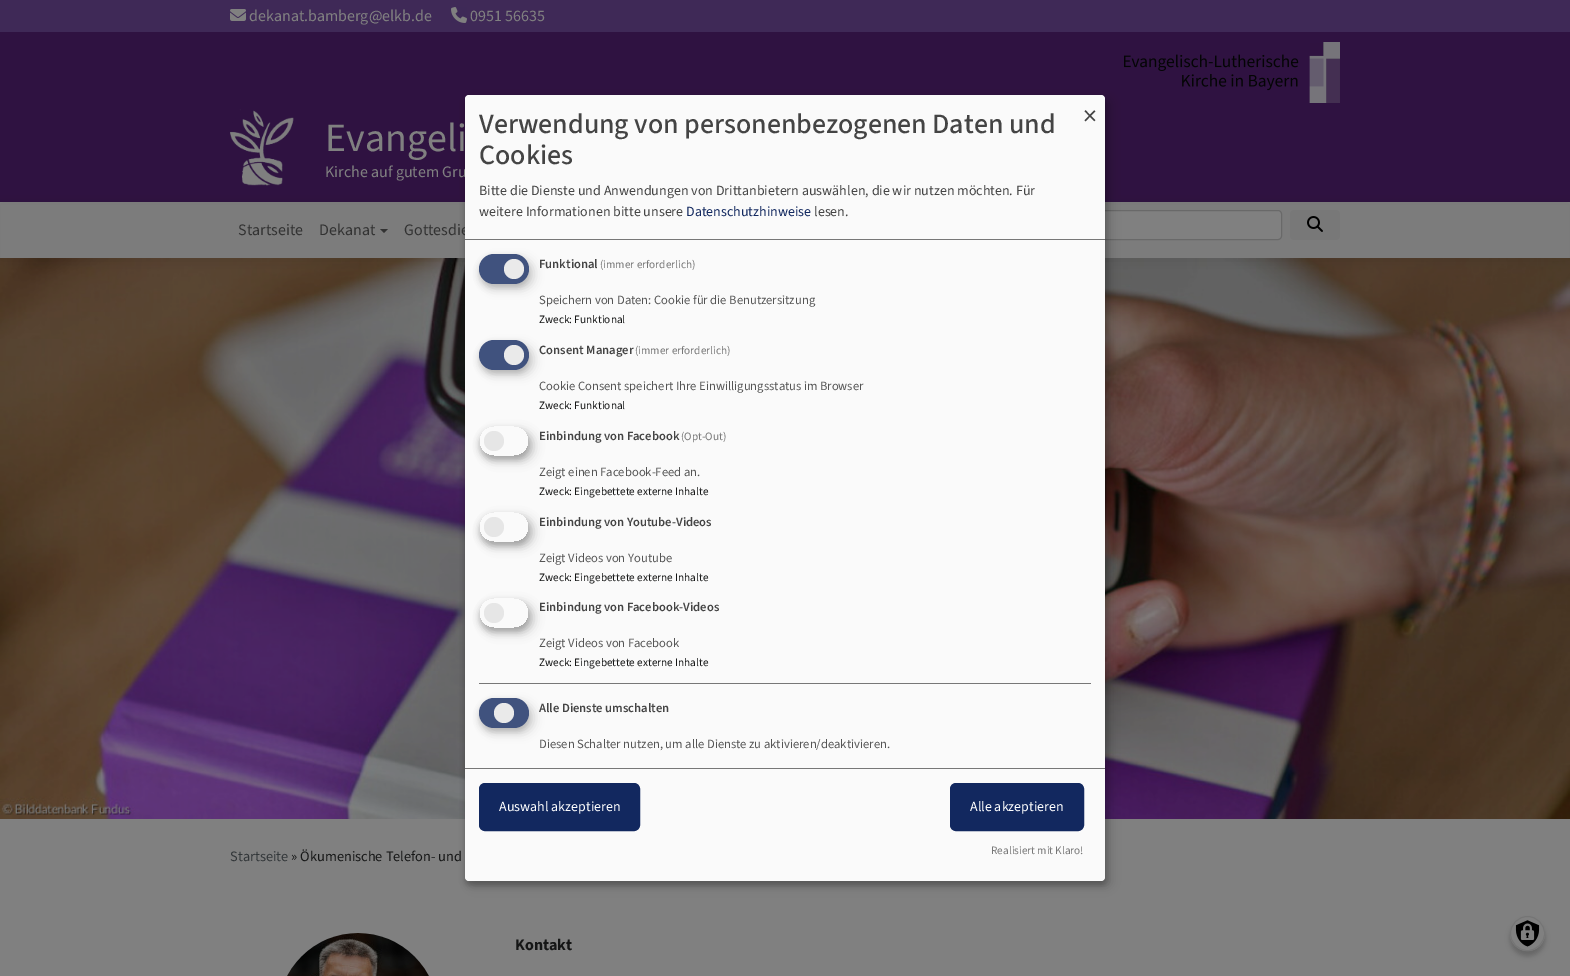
%!PS-Adobe-3.0
%%BoundingBox: 0 0 1570 976
%%LanguageLevel: 3
%%Pages: 1
%%EndComments
%%BeginProlog
/setalpha { dup .setfillconstantalpha .setstrokeconstantalpha } def
/rrect { 5 dict begin { /r /h /w /y /x } { exch def } forall
  x r add y moveto x w add y 2 copy h add r arct x w add y h add x 1 index r arct
  x y h add x y r arct x y 2 copy exch w add exch r arct closepath end } def
/softshadow { 12 dict begin { /a /b /q /h /w /y /x } { exch def } forall gsave /was 0 def
  9 -2 -9 { dup b mul 4 div /e exch def 1 sub .425 mul 2.718 exch exp 1 add a .99 .min exch div /now exch def
    1 1 now sub 1 was sub div sub setalpha /was now def
    w h .min e 2 mul add 0 gt { x e sub y e sub w e 2 mul add h e 2 mul add
      q e add b .6 mul add w h .min 2 div e add .min 0 .max rrect fill } if } for grestore end } def
/drawimage { 5 dict begin { /h /w /y /x /name } { exch def } forall
  gsave x y translate w h scale
  w h 8 [w 0 0 h 0 0] name (r) file false 3 colorimage grestore end } def
%%EndProlog
%%BeginSetup
<< /PageSize [1570 976] /PageUsesTransparency true >> setpagedevice
%%EndSetup
%%Page: 1 1
0 .pushpdf14devicefilter
0 976 translate 1 -1 scale
4 setmiterlimit
0.502 setgray
0 0 1570 976 rectfill
0.247 0.161 0.341 setrgbcolor
0 0 1570 32 rectfill
(images/1.raw) 230 9 16 12 drawimage
(images/2.raw) 451 7 16 16 drawimage
0.184 0.071 0.255 setrgbcolor
0 32 1570 170 rectfill
(images/3.raw) 1124 42 216 61 drawimage
(images/4.raw) 230 109 64 77 drawimage
(images/6.raw) 0 258 1570 561 drawimage
0 setgray
0 204 1570 56 0 7.5 0.09 softshadow
0.486 setgray
1 205 1568 53 rectfill
0.196 setgray
newpath 380 229 moveto 388 229 lineto 384 233 lineto closepath fill
0.502 setgray
1096.5 210.5 185 29 3.5 rrect gsave fill grestore
0.412 setgray
stroke
0.471 setgray
1290 210 50 30 4 rrect fill
(images/5.raw) 1307 216 16 16 drawimage
(images/7.raw) 287 933 142 43 drawimage
0 setgray
470 100 640 786 4 5 0.19 softshadow
465 99 640 786 4 3 0.2 softshadow
1510 921 35 35 17.5 2.5 0.2 softshadow
0.502 setgray
newpath 1527.5 933.5 17.5 0 360 arc closepath fill
(images/8.raw) 1515 920 25 27 drawimage
0.459 setgray
newpath 1527.5 933.5 17 0 360 arc closepath stroke
/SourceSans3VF-Regular [16 0 0 -16 0 0] selectfont
0.502 setgray
249 21 moveto (dekanat.bamberg@elkb.de) show
470 21 moveto (0951 56635) show
/SourceSans3VF-Regular [40 0 0 -40 0 0] selectfont
325 151 moveto (Evangeli) show
/SourceSans3VF-Regular [16 0 0 -16 0 0] selectfont
325 177 moveto (Kirche auf gutem Gru) show
0.196 setgray
238 235 moveto (Startseite) show
319 235 moveto (Dekanat) show
404 235 moveto (Gottesdie) show
/SourceSans3VF-Regular [14.4 0 0 -14.4 0 0] selectfont
0.196 0.212 0.224 setrgbcolor
230 861 moveto (Startseite) show
0.082 0.086 0.086 setrgbcolor
291 861 moveto (» Ökumenische Telefon- und) show
/SourceSans3VF-Bold [16 0 0 -16 0 0] selectfont
515 950 moveto (Kontakt) show
0.98 setgray
465 95 640 786 4 rrect fill
0.467 setgray
465 239 640 1 rectfill
/SourceSans3VF-Medium [28 0 0 -28 0 0] selectfont
0.267 setgray
479 133 moveto (Verwendung von personenbezogenen Daten und) show
479 164 moveto (Cookies) show
/SourceSans3VF-Regular [14 0 0 -14 0 0] selectfont
479 195 moveto (Bitte die Dienste und Anwendungen von Drittanbietern auswählen, die wir nutzen möchten. Für) show
479 216 moveto (weitere Informationen bitte unsere) show
0.071 0.157 0.373 setrgbcolor
686 216 moveto (Datenschutzhinweise) show
0.267 setgray
814 216 moveto (lesen.) show
/SourceSans3VF-Regular [28 0 0 -28 0 0] selectfont
1083 125 moveto (×) show
0 setgray
484 259 50 30 15 5 0.15 softshadow
0.196 setgray
479 258 50 30 15 3 0.2 softshadow
0.251 0.322 0.494 setrgbcolor
479 254 50 30 15 rrect fill
0.918 setgray
newpath 514 269 10 0 360 arc closepath fill
/SourceSans3VF-SemiBold [12.6 0 0 -12.6 0 0] selectfont
0.267 setgray
539 268 moveto (Funktional) show
/SourceSans3VF-Regular [11.25 0 0 -11.25 0 0] selectfont
0.467 setgray
600 268 moveto (\(immer erforderlich\)) show
/SourceSans3VF-Regular [12.6 0 0 -12.6 0 0] selectfont
0.333 setgray
539 304 moveto (Speichern von Daten: Cookie für die Benutzersitzung) show
/SourceSans3VF-Regular [11.25 0 0 -11.25 0 0] selectfont
0.082 0.086 0.086 setrgbcolor
539 323 moveto (Zweck: Funktional) show
0 setgray
484 345 50 30 15 5 0.15 softshadow
0.196 setgray
479 344 50 30 15 3 0.2 softshadow
0.251 0.322 0.494 setrgbcolor
479 340 50 30 15 rrect fill
0.918 setgray
newpath 514 355 10 0 360 arc closepath fill
/SourceSans3VF-SemiBold [12.6 0 0 -12.6 0 0] selectfont
0.267 setgray
539 354 moveto (Consent Manager) show
/SourceSans3VF-Regular [11.25 0 0 -11.25 0 0] selectfont
0.467 setgray
635 354 moveto (\(immer erforderlich\)) show
/SourceSans3VF-Regular [12.6 0 0 -12.6 0 0] selectfont
0.333 setgray
539 390 moveto (Cookie Consent speichert Ihre Einwilligungsstatus im Browser) show
/SourceSans3VF-Regular [11.25 0 0 -11.25 0 0] selectfont
0.082 0.086 0.086 setrgbcolor
539 409 moveto (Zweck: Funktional) show
gsave
newpath 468 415 moveto 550 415 lineto 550 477 lineto 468 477 lineto closepath 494 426 moveto 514 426 lineto 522.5 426 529 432.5 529 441 curveto 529 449.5 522.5 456 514 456 curveto 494 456 lineto 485.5 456 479 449.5 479 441 curveto 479 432.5 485.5 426 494 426 curveto closepath eoclip newpath
0 setgray
484 431 50 30 15 5 0.19 softshadow
grestore
gsave
newpath 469 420 moveto 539 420 lineto 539 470 lineto 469 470 lineto closepath 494 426 moveto 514 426 lineto 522.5 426 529 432.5 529 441 curveto 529 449.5 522.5 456 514 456 curveto 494 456 lineto 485.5 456 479 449.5 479 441 curveto 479 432.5 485.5 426 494 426 curveto closepath eoclip newpath
0 setgray
479 430 50 30 15 3 0.2 softshadow
grestore
0.902 setgray
newpath 494 441 10 0 360 arc closepath fill
/SourceSans3VF-SemiBold [12.6 0 0 -12.6 0 0] selectfont
0.267 setgray
539 440 moveto (Einbindung von Facebook) show
/SourceSans3VF-Regular [11.25 0 0 -11.25 0 0] selectfont
0.467 setgray
681 440 moveto (\(Opt-Out\)) show
/SourceSans3VF-Regular [12.6 0 0 -12.6 0 0] selectfont
0.333 setgray
539 476 moveto (Zeigt einen Facebook-Feed an.) show
/SourceSans3VF-Regular [11.25 0 0 -11.25 0 0] selectfont
0.082 0.086 0.086 setrgbcolor
539 495 moveto (Zweck: Eingebettete externe Inhalte) show
gsave
newpath 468 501 moveto 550 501 lineto 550 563 lineto 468 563 lineto closepath 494 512 moveto 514 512 lineto 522.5 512 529 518.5 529 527 curveto 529 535.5 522.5 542 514 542 curveto 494 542 lineto 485.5 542 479 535.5 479 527 curveto 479 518.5 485.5 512 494 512 curveto closepath eoclip newpath
0 setgray
484 517 50 30 15 5 0.19 softshadow
grestore
gsave
newpath 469 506 moveto 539 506 lineto 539 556 lineto 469 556 lineto closepath 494 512 moveto 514 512 lineto 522.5 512 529 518.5 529 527 curveto 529 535.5 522.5 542 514 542 curveto 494 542 lineto 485.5 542 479 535.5 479 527 curveto 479 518.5 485.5 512 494 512 curveto closepath eoclip newpath
0 setgray
479 516 50 30 15 3 0.2 softshadow
grestore
0.902 setgray
newpath 494 527 10 0 360 arc closepath fill
/SourceSans3VF-SemiBold [12.6 0 0 -12.6 0 0] selectfont
0.267 setgray
539 526 moveto (Einbindung von Youtube-Videos) show
/SourceSans3VF-Regular [12.6 0 0 -12.6 0 0] selectfont
0.333 setgray
539 562 moveto (Zeigt Videos von Youtube) show
/SourceSans3VF-Regular [11.25 0 0 -11.25 0 0] selectfont
0.082 0.086 0.086 setrgbcolor
539 581 moveto (Zweck: Eingebettete externe Inhalte) show
gsave
newpath 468 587 moveto 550 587 lineto 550 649 lineto 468 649 lineto closepath 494 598 moveto 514 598 lineto 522.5 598 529 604.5 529 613 curveto 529 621.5 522.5 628 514 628 curveto 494 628 lineto 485.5 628 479 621.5 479 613 curveto 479 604.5 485.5 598 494 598 curveto closepath eoclip newpath
0 setgray
484 603 50 30 15 5 0.19 softshadow
grestore
gsave
newpath 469 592 moveto 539 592 lineto 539 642 lineto 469 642 lineto closepath 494 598 moveto 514 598 lineto 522.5 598 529 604.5 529 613 curveto 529 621.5 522.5 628 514 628 curveto 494 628 lineto 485.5 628 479 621.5 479 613 curveto 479 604.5 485.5 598 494 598 curveto closepath eoclip newpath
0 setgray
479 602 50 30 15 3 0.2 softshadow
grestore
0.902 setgray
newpath 494 613 10 0 360 arc closepath fill
/SourceSans3VF-SemiBold [12.6 0 0 -12.6 0 0] selectfont
0.267 setgray
539 611 moveto (Einbindung von Facebook-Videos) show
/SourceSans3VF-Regular [12.6 0 0 -12.6 0 0] selectfont
0.333 setgray
539 647 moveto (Zeigt Videos von Facebook) show
/SourceSans3VF-Regular [11.25 0 0 -11.25 0 0] selectfont
0.082 0.086 0.086 setrgbcolor
539 666 moveto (Zweck: Eingebettete externe Inhalte) show
0.467 setgray
479 683 612 1 rectfill
0 setgray
484 703 50 30 15 5 0.15 softshadow
0.196 setgray
479 702 50 30 15 3 0.2 softshadow
0.251 0.322 0.494 setrgbcolor
479 698 50 30 15 rrect fill
0.918 setgray
newpath 504 713 10 0 360 arc closepath fill
/SourceSans3VF-SemiBold [12.6 0 0 -12.6 0 0] selectfont
0.267 setgray
539 712 moveto (Alle Dienste umschalten) show
/SourceSans3VF-Regular [12.6 0 0 -12.6 0 0] selectfont
0.333 setgray
539 748 moveto (Diesen Schalter nutzen, um alle Dienste zu aktivieren/deaktivieren.) show
0.467 setgray
465 768 640 1 rectfill
0.071 0.157 0.373 setrgbcolor
480.5 784.5 158 45 4.5 rrect gsave fill grestore
3 setlinewidth
stroke
/SourceSans3VF-Regular [14 0 0 -14 0 0] selectfont
1 setgray
499 811 moveto (Auswahl akzeptieren) show
0.071 0.157 0.373 setrgbcolor
951.5 784.5 131 45 4.5 rrect gsave fill grestore
stroke
1 setgray
970 811 moveto (Alle akzeptieren) show
/SourceSans3VF-Regular [11.25 0 0 -11.25 0 0] selectfont
0.467 setgray
991 854 moveto (Realisiert mit Klaro!) show
.poppdf14devicefilter showpage
%%EOF
